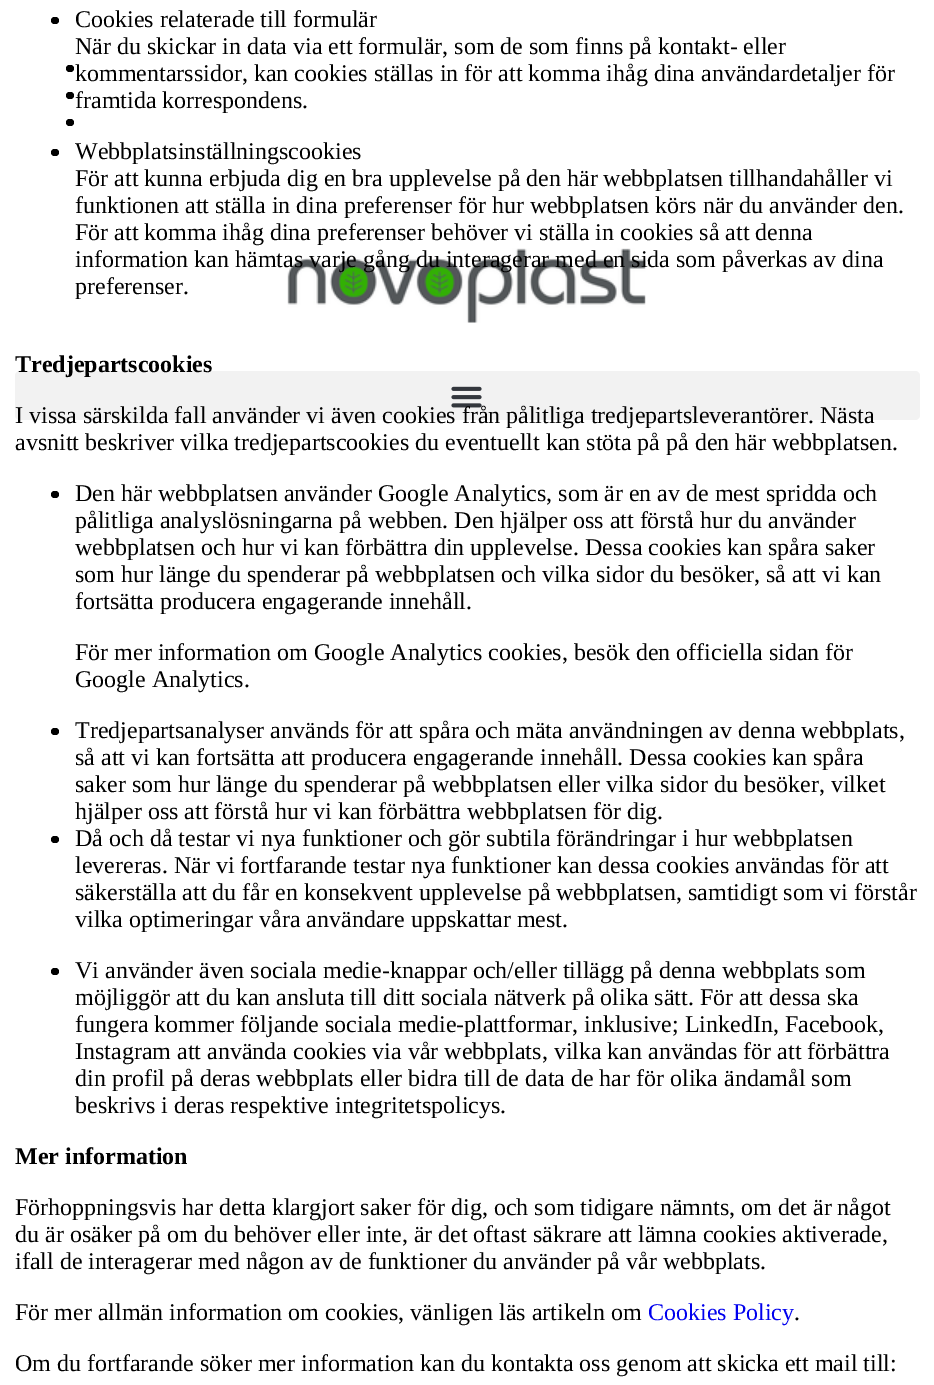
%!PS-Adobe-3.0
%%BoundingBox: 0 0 934 1385
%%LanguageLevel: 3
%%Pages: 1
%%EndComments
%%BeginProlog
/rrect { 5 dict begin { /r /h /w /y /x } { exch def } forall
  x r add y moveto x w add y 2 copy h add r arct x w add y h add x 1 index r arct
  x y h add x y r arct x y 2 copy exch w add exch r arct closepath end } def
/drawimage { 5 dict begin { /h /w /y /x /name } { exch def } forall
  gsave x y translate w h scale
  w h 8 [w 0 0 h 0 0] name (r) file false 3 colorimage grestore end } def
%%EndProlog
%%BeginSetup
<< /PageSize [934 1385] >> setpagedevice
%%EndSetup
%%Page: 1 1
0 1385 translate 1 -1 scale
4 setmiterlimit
1 setgray
0 0 934 1385 rectfill
0 setgray
51 17 8 7 3.5 rrect fill
51 149 8 7 3.5 rrect fill
51 491 8 7 3.5 rrect fill
51 728 8 7 3.5 rrect fill
51 836 8 7 3.5 rrect fill
51 968 8 7 3.5 rrect fill
66 65 8 7 3.5 rrect fill
66 92 8 7 3.5 rrect fill
66 119 8 7 3.5 rrect fill
(images/1.raw) 287 248 359 75 drawimage
0.949 setgray
15 371 905 49 5 rrect fill
(images/2.raw) 451 386 31 22 drawimage
/LiberationSerif-Regular [24 0 0 -24 0 0] selectfont
0 setgray
75 27 moveto (Cookies relaterade till formulär) show
75 54 moveto (När du skickar in data via ett formulär, som de som finns på kontakt- eller) show
75 81 moveto (kommentarssidor, kan cookies ställas in för att komma ihåg dina användardetaljer för) show
75 108 moveto (framtida korrespondens.) show
75 159 moveto (Webbplatsinställningscookies) show
75 186 moveto (För att kunna erbjuda dig en bra upplevelse på den här webbplatsen tillhandahåller vi) show
75 213 moveto (funktionen att ställa in dina preferenser för hur webbplatsen körs när du använder den.) show
75 240 moveto (För att komma ihåg dina preferenser behöver vi ställa in cookies så att denna) show
75 267 moveto (information kan hämtas varje gång du interagerar med en sida som påverkas av dina) show
75 294 moveto (preferenser.) show
/LiberationSerif-Bold [24 0 0 -24 0 0] selectfont
15 372 moveto (Tredjepartscookies) show
/LiberationSerif-Regular [24 0 0 -24 0 0] selectfont
15 423 moveto (I vissa särskilda fall använder vi även cookies från pålitliga tredjepartsleverantörer. Nästa) show
15 450 moveto (avsnitt beskriver vilka tredjepartscookies du eventuellt kan stöta på på den här webbplatsen.) show
75 501 moveto (Den här webbplatsen använder Google Analytics, som är en av de mest spridda och) show
75 528 moveto (pålitliga analyslösningarna på webben. Den hjälper oss att förstå hur du använder) show
75 555 moveto (webbplatsen och hur vi kan förbättra din upplevelse. Dessa cookies kan spåra saker) show
75 582 moveto (som hur länge du spenderar på webbplatsen och vilka sidor du besöker, så att vi kan) show
75 609 moveto (fortsätta producera engagerande innehåll.) show
75 660 moveto (För mer information om Google Analytics cookies, besök den officiella sidan för) show
75 687 moveto (Google Analytics.) show
75 738 moveto (Tredjepartsanalyser används för att spåra och mäta användningen av denna webbplats,) show
75 765 moveto (så att vi kan fortsätta att producera engagerande innehåll. Dessa cookies kan spåra) show
75 792 moveto (saker som hur länge du spenderar på webbplatsen eller vilka sidor du besöker, vilket) show
75 819 moveto (hjälper oss att förstå hur vi kan förbättra webbplatsen för dig.) show
75 846 moveto (Då och då testar vi nya funktioner och gör subtila förändringar i hur webbplatsen) show
75 873 moveto (levereras. När vi fortfarande testar nya funktioner kan dessa cookies användas för att) show
75 900 moveto (säkerställa att du får en konsekvent upplevelse på webbplatsen, samtidigt som vi förstår) show
75 927 moveto (vilka optimeringar våra användare uppskattar mest.) show
75 978 moveto (Vi använder även sociala medie-knappar och/eller tillägg på denna webbplats som) show
75 1005 moveto (möjliggör att du kan ansluta till ditt sociala nätverk på olika sätt. För att dessa ska) show
75 1032 moveto (fungera kommer följande sociala medie-plattformar, inklusive; LinkedIn, Facebook,) show
75 1059 moveto (Instagram att använda cookies via vår webbplats, vilka kan användas för att förbättra) show
75 1086 moveto (din profil på deras webbplats eller bidra till de data de har för olika ändamål som) show
75 1113 moveto (beskrivs i deras respektive integritetspolicys.) show
/LiberationSerif-Bold [24 0 0 -24 0 0] selectfont
15 1164 moveto (Mer information) show
/LiberationSerif-Regular [24 0 0 -24 0 0] selectfont
15 1215 moveto (Förhoppningsvis har detta klargjort saker för dig, och som tidigare nämnts, om det är något) show
15 1242 moveto (du är osäker på om du behöver eller inte, är det oftast säkrare att lämna cookies aktiverade,) show
15 1269 moveto (ifall de interagerar med någon av de funktioner du använder på vår webbplats.) show
15 1320 moveto (För mer allmän information om cookies, vänligen läs artikeln om) show
0 0 0.933 setrgbcolor
648 1320 moveto (Cookies Policy) show
0 setgray
794 1320 moveto (.) show
15 1371 moveto (Om du fortfarande söker mer information kan du kontakta oss genom att skicka ett mail till:) show
showpage
%%EOF
